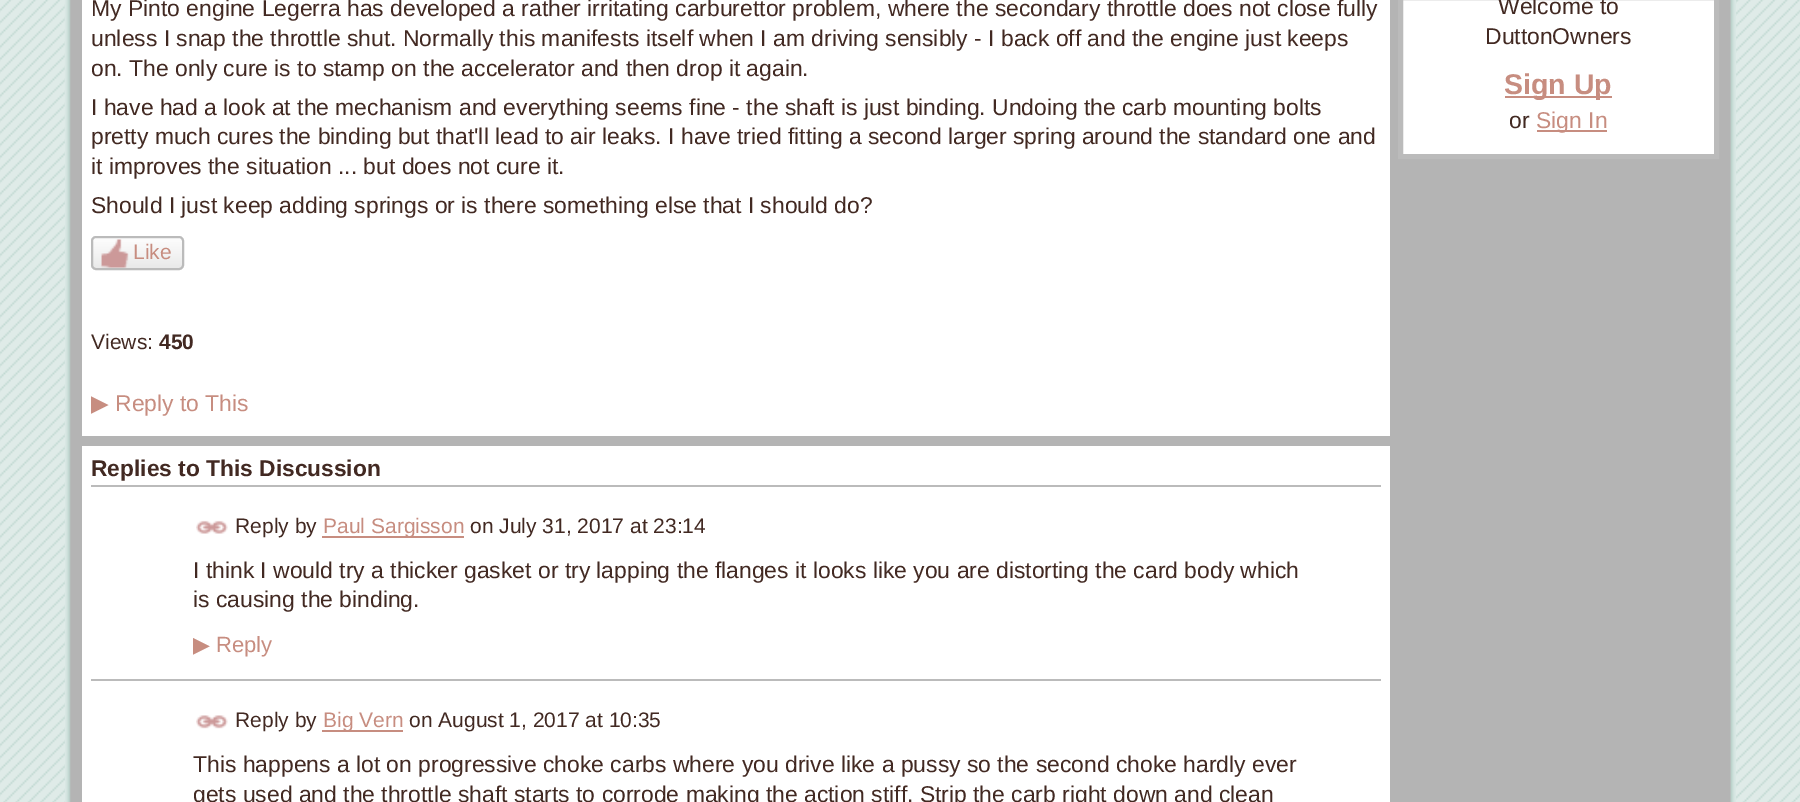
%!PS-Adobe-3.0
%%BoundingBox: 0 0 1800 802
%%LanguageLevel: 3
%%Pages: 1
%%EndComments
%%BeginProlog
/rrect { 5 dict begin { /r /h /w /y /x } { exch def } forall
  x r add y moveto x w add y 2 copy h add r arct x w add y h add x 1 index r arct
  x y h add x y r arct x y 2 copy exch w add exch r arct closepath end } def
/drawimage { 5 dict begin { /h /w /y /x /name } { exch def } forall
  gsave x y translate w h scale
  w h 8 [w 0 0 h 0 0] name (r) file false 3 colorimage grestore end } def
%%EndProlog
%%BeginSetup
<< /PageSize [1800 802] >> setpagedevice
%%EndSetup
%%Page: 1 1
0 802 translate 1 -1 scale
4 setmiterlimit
1 setgray
0 0 1800 802 rectfill
(images/1.raw) 0 0 1800 802 drawimage
(images/2.raw) 64 0 1 142 drawimage
0.706 setgray
69 0 1663 802 rectfill
(images/3.raw) 65 0 1671 802 drawimage
1 setgray
82 0 1308 436 rectfill
(images/4.raw) 91 239 93 29 drawimage
0.733 setgray
2 setlinewidth
92 237 91 32 4 rrect stroke
(images/5.raw) 101 239 28 29 drawimage
1 setgray
82 446 1308 356 rectfill
0.733 setgray
91 485 1290 2 rectfill
(images/6.raw) 196 520 32 14 drawimage
0.78 0.553 0.502 setrgbcolor
322 536 142 2 rectfill
0.733 setgray
91 679 1290 2 rectfill
(images/7.raw) 196 715 32 14 drawimage
0.78 0.553 0.502 setrgbcolor
322 730 81 2 rectfill
1 setgray
newpath 1400.5 -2.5 moveto 1716.5 -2.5 lineto 1716.5 156.5 lineto 1400.5 156.5 lineto closepath gsave fill grestore
0.733 setgray
5 setlinewidth
stroke
0.78 0.553 0.502 setrgbcolor
1505 96 107 2 rectfill
1537 130 70 2 rectfill
/LiberationSans-Regular [22.9 0 0 -22.9 0 0] selectfont
0.259 0.161 0.133 setrgbcolor
91 16 moveto (My Pinto engine Legerra has developed a rather irritating carburettor problem, where the secondary throttle does not close fully) show
91 46 moveto (unless I snap the throttle shut. Normally this manifests itself when I am driving sensibly - I back off and the engine just keeps) show
91 76 moveto (on. The only cure is to stamp on the accelerator and then drop it again.) show
91 115 moveto (I have had a look at the mechanism and everything seems fine - the shaft is just binding. Undoing the carb mounting bolts) show
91 144 moveto (pretty much cures the binding but that'll lead to air leaks. I have tried fitting a second larger spring around the standard one and) show
91 174 moveto (it improves the situation ... but does not cure it.) show
91 213 moveto (Should I just keep adding springs or is there something else that I should do?) show
/LiberationSans-Regular [21 0 0 -21 0 0] selectfont
0.78 0.553 0.502 setrgbcolor
133 259 moveto (Like) show
0.259 0.161 0.133 setrgbcolor
91 349 moveto (Views:) show
/LiberationSans-Bold [21 0 0 -21 0 0] selectfont
159 349 moveto (450) show
/DejaVuSans-Regular [22.9 0 0 -22.9 0 0] selectfont
0.78 0.553 0.502 setrgbcolor
91 411 moveto (▶) show
/LiberationSans-Regular [22.9 0 0 -22.9 0 0] selectfont
115 411 moveto (Reply to This) show
/LiberationSans-Bold [22.75 0 0 -22.75 0 0] selectfont
0.259 0.161 0.133 setrgbcolor
91 476 moveto (Replies to This Discussion) show
/LiberationSans-Regular [21 0 0 -21 0 0] selectfont
235 533 moveto (Reply by) show
0.78 0.553 0.502 setrgbcolor
323 533 moveto (Paul Sargisson) show
0.259 0.161 0.133 setrgbcolor
470 533 moveto (on July 31, 2017 at 23:14) show
/LiberationSans-Regular [22.9 0 0 -22.9 0 0] selectfont
193 578 moveto (I think I would try a thicker gasket or try lapping the flanges it looks like you are distorting the card body which) show
193 607 moveto (is causing the binding.) show
/DejaVuSans-Regular [22 0 0 -22 0 0] selectfont
0.78 0.553 0.502 setrgbcolor
193 652 moveto (▶) show
/LiberationSans-Regular [22 0 0 -22 0 0] selectfont
216 652 moveto (Reply) show
/LiberationSans-Regular [21 0 0 -21 0 0] selectfont
0.259 0.161 0.133 setrgbcolor
235 727 moveto (Reply by) show
0.78 0.553 0.502 setrgbcolor
323 727 moveto (Big Vern) show
0.259 0.161 0.133 setrgbcolor
409 727 moveto (on August 1, 2017 at 10:35) show
/LiberationSans-Regular [22.9 0 0 -22.9 0 0] selectfont
193 772 moveto (This happens a lot on progressive choke carbs where you drive like a pussy so the second choke hardly ever) show
193 802 moveto (gets used and the throttle shaft starts to corrode making the action stiff. Strip the carb right down and clean) show
1498 14 moveto (Welcome to) show
1485 44 moveto (DuttonOwners) show
/LiberationSans-Bold [28.5 0 0 -28.5 0 0] selectfont
0.78 0.553 0.502 setrgbcolor
1504 94 moveto (Sign Up) show
/LiberationSans-Regular [22.9 0 0 -22.9 0 0] selectfont
0.259 0.161 0.133 setrgbcolor
1509 128 moveto (or) show
0.78 0.553 0.502 setrgbcolor
1536 128 moveto (Sign In) show
showpage
%%EOF
